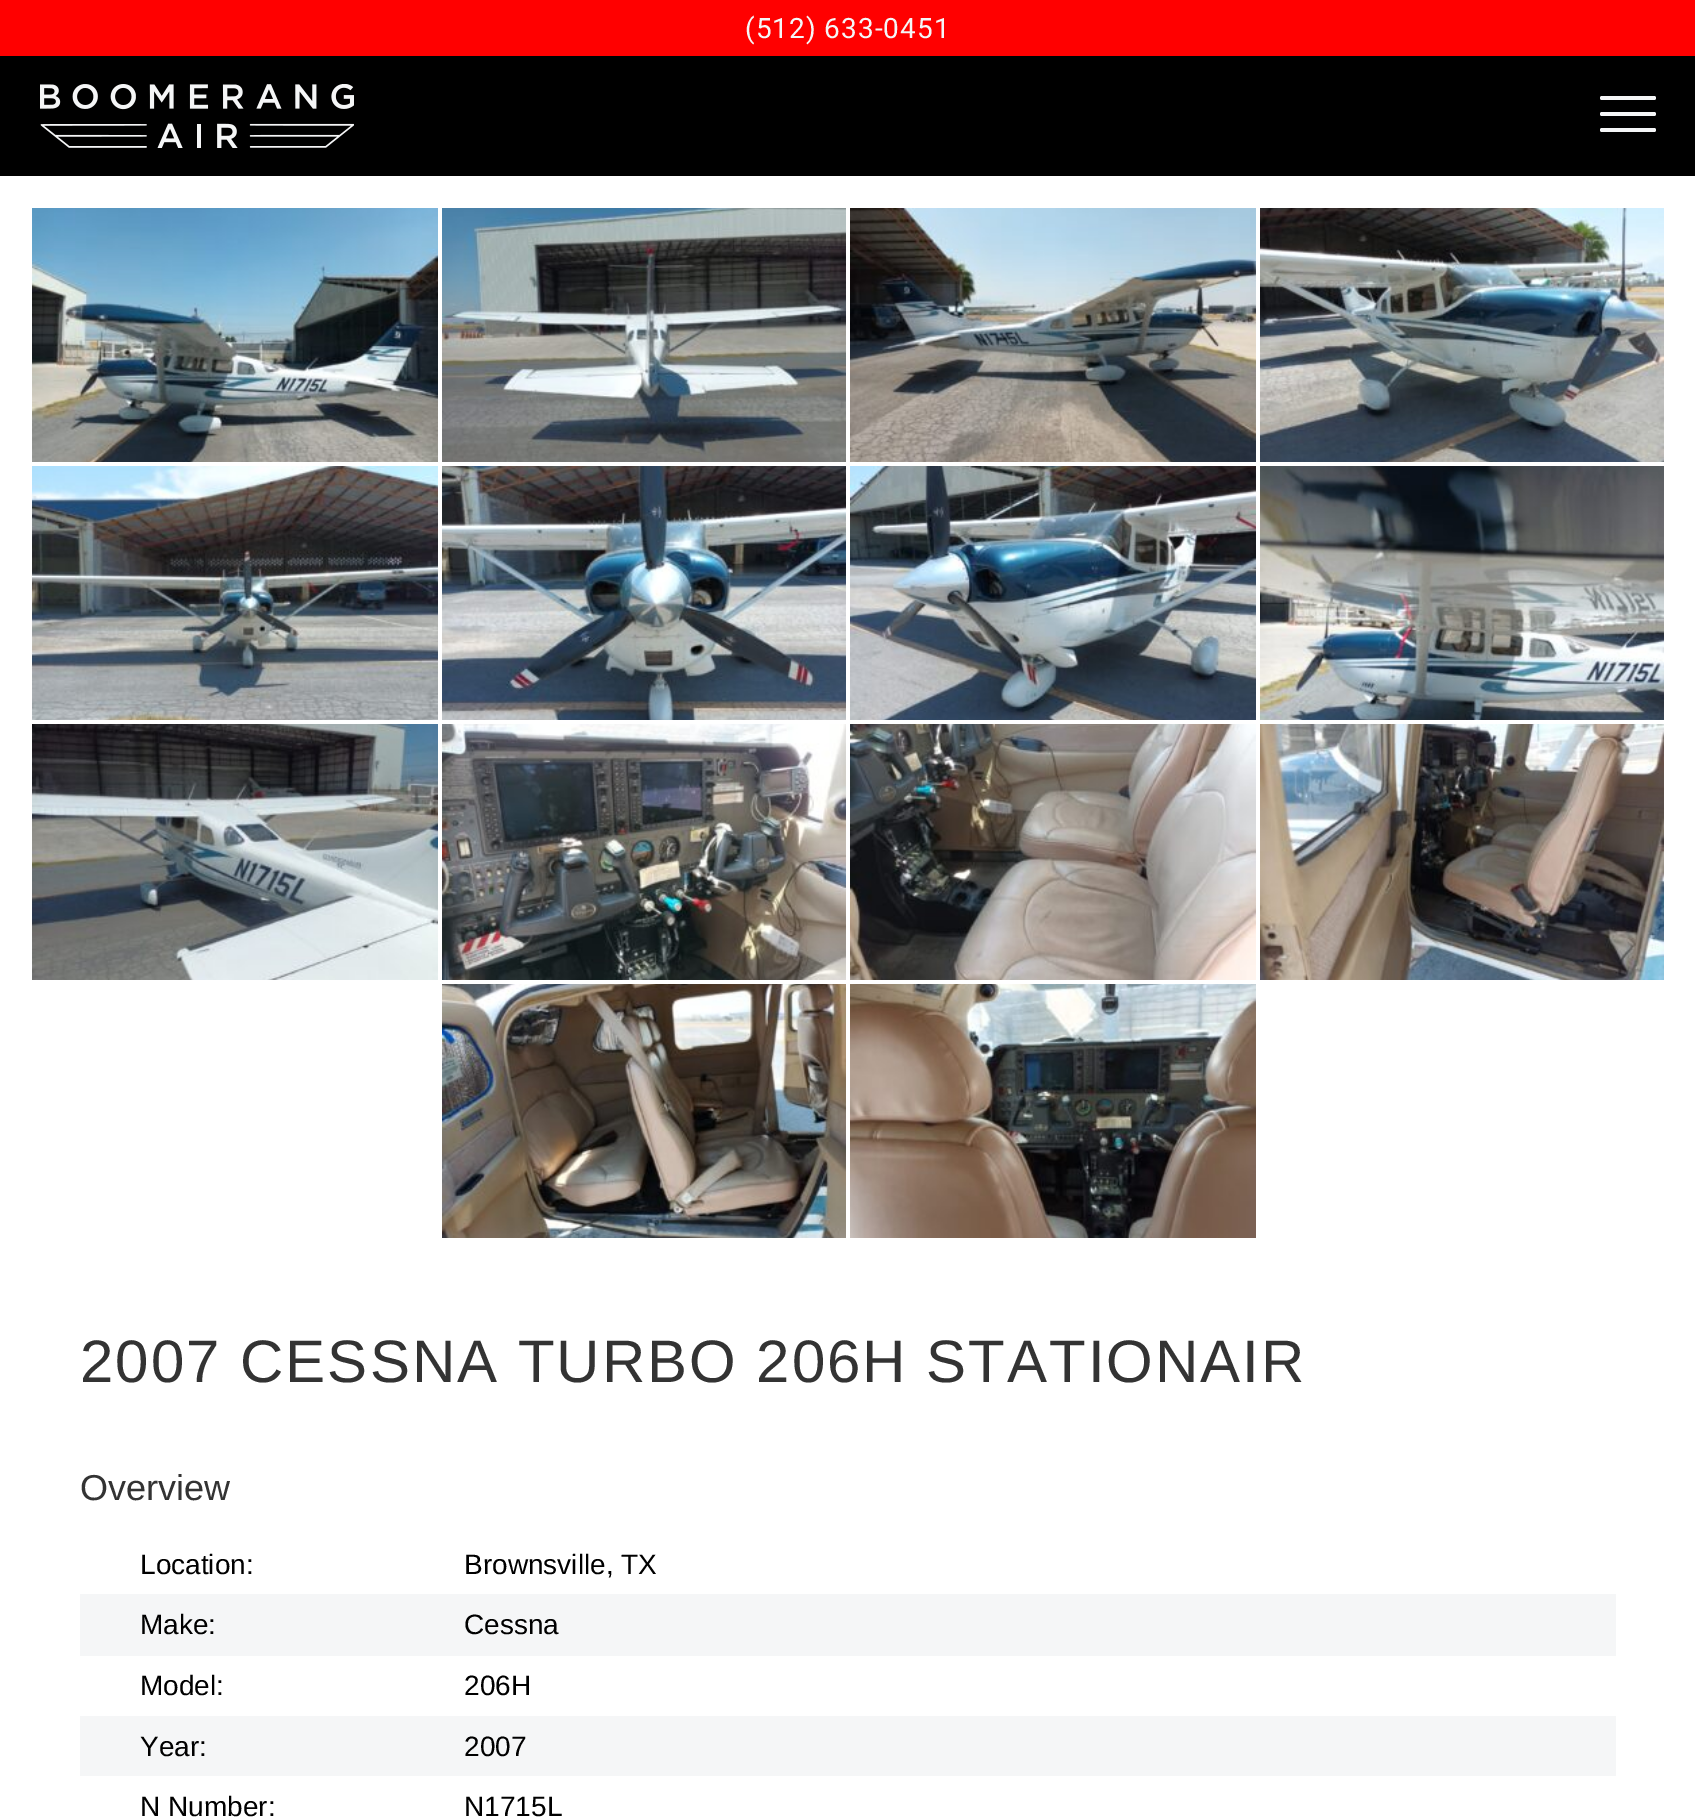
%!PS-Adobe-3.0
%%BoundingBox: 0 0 1695 1819
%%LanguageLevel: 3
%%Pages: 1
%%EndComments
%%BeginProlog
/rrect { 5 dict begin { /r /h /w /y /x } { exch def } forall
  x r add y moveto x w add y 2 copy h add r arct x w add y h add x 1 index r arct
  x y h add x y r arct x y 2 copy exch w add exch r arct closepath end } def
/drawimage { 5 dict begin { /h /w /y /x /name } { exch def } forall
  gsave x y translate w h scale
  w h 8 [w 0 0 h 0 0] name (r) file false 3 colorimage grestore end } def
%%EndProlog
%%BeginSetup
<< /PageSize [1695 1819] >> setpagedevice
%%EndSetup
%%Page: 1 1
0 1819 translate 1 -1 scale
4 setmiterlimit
0 setgray
0 0 1695 1819 rectfill
1 0 0 setrgbcolor
0 0 1695 56 rectfill
(images/1.raw) 40 84 314 64 drawimage
0.961 0.965 0.969 setrgbcolor
1600 96 56 4 2 rrect fill
1600 112 56 4 2 rrect fill
1600 128 56 4 2 rrect fill
1 setgray
0 176 1695 1643 rectfill
(images/2.raw) 32 208 406 254 drawimage
(images/3.raw) 442 208 404 254 drawimage
(images/4.raw) 850 208 406 254 drawimage
(images/5.raw) 1260 208 404 254 drawimage
(images/6.raw) 32 466 406 254 drawimage
(images/7.raw) 442 466 404 254 drawimage
(images/8.raw) 850 466 406 254 drawimage
(images/9.raw) 1260 466 404 254 drawimage
(images/10.raw) 32 724 406 256 drawimage
(images/11.raw) 442 724 404 256 drawimage
(images/12.raw) 850 724 406 256 drawimage
(images/13.raw) 1260 724 404 256 drawimage
(images/14.raw) 442 984 404 254 drawimage
(images/15.raw) 850 984 406 254 drawimage
0.961 0.965 0.969 setrgbcolor
80 1594 1536 62 rectfill
80 1716 1536 60 rectfill
/Roboto-Regular [28 0 0 -28 0 0] selectfont
745 38 moveto 1 0 (\(512\) 633-0451) ashow
/LiberationSans-Regular [60 0 0 -60 0 0] selectfont
0.2 setgray
80 1382 moveto 2 0 (2007 CESSNA TURBO 206H STATIONAIR) ashow
/LiberationSans-Regular [36 0 0 -36 0 0] selectfont
80 1500 moveto (Overview) show
/LiberationSans-Regular [28 0 0 -28 0 0] selectfont
0 setgray
140 1574 moveto (Location:) show
464 1574 moveto (Brownsville, TX) show
140 1634 moveto (Make:) show
464 1634 moveto (Cessna) show
140 1695 moveto (Model:) show
464 1695 moveto (206H) show
140 1756 moveto (Year:) show
464 1756 moveto (2007) show
140 1816 moveto (N Number:) show
464 1816 moveto (N1715L) show
showpage
%%EOF
